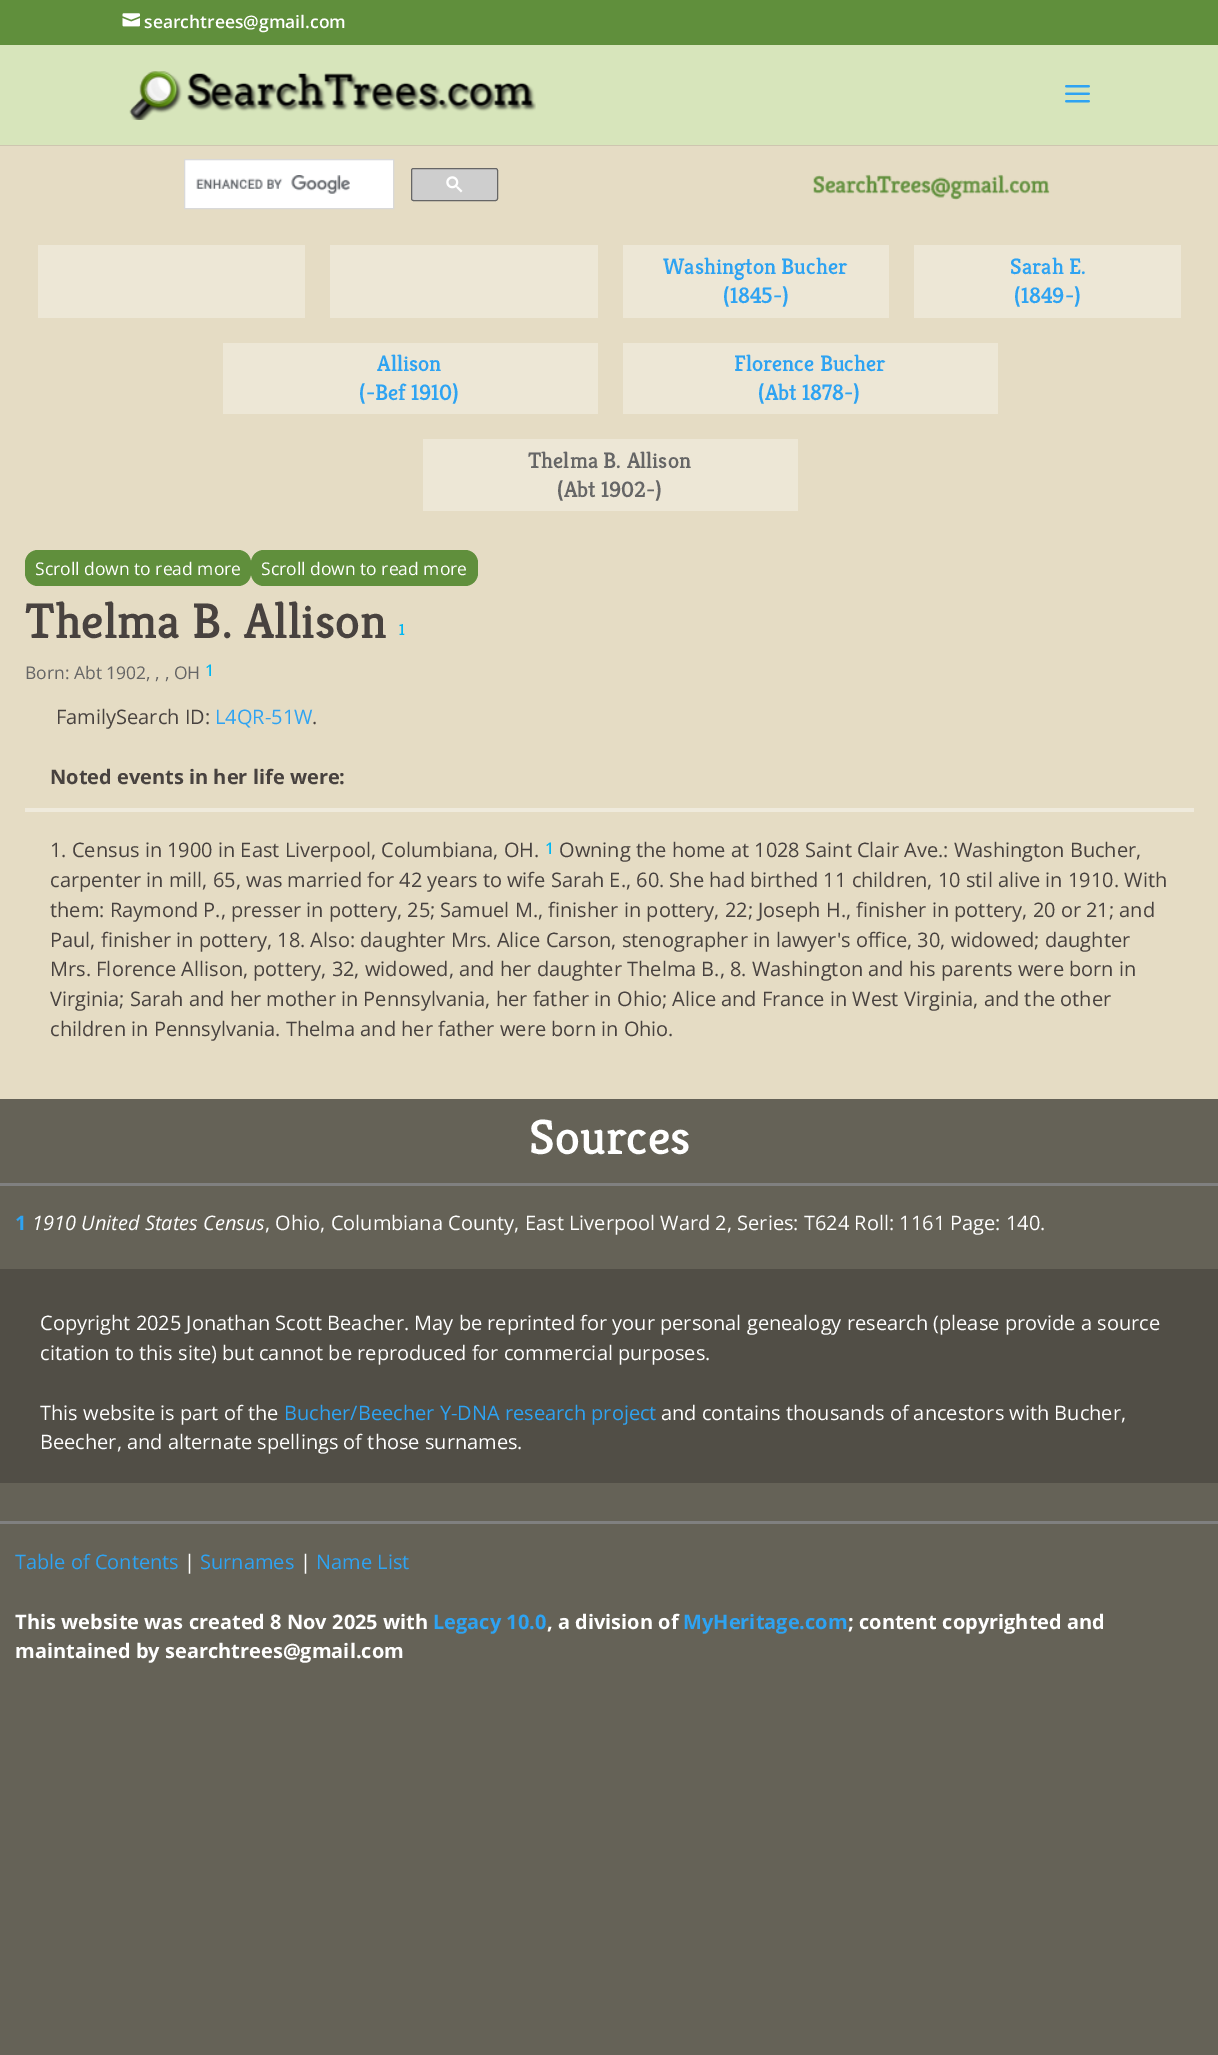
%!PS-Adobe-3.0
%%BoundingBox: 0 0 1218 2055
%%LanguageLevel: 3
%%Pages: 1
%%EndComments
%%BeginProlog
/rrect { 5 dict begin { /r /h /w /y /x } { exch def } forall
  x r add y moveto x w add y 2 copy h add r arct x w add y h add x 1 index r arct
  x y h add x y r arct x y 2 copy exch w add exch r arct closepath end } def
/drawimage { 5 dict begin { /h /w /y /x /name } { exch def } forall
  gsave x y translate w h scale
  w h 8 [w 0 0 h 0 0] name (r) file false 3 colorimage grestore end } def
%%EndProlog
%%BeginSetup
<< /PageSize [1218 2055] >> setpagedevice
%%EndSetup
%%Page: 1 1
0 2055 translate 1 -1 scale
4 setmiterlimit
0.396 0.384 0.341 setrgbcolor
0 0 1218 2055 rectfill
0.376 0.561 0.235 setrgbcolor
0 0 1218 45 rectfill
(images/1.raw) 122 13 18 14 drawimage
0.808 0.776 0.69 setrgbcolor
newpath 0 145 moveto 0 146 lineto 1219 146 lineto 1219 46 lineto 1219 145 lineto closepath fill
0.843 0.898 0.733 setrgbcolor
0 45 1218 100 rectfill
(images/2.raw) 129 71 407 49 drawimage
(images/3.raw) 1065 85 25 18 drawimage
0.898 0.863 0.769 setrgbcolor
0 146 1218 953 rectfill
1 setgray
newpath 184.5 159.5 moveto 393.5 159.5 lineto 393.5 208.5 lineto 184.5 208.5 lineto closepath gsave fill grestore
0.851 setgray
stroke
(images/4.raw) 196 175 154 19 drawimage
0.808 setgray
411.5 168.5 86 32 2 rrect gsave fill grestore
0.4 setgray
stroke
(images/5.raw) 446 176 17 17 drawimage
(images/6.raw) 813 174 237 26 drawimage
0.929 0.906 0.839 setrgbcolor
38 245 267 73 rectfill
330 245 268 73 rectfill
623 245 266 73 rectfill
914 245 267 73 rectfill
223 343 375 71 rectfill
623 343 375 71 rectfill
423 439 375 72 rectfill
0.376 0.561 0.235 setrgbcolor
25 550 226 36 13 rrect fill
251 550 227 36 13 rrect fill
0.937 0.918 0.863 setrgbcolor
25 808 1169 4 rectfill
0.502 setgray
0 1183 1218 3 rectfill
0.318 0.306 0.275 setrgbcolor
0 1269 1218 214 rectfill
0.502 setgray
0 1521 1218 3 rectfill
/OpenSans-SemiBold [17.5 0 0 -17.5 0 0] selectfont
1 setgray
144 28 moveto (searchtrees@gmail.com) show
/Kreon-Medium [22.5 0 0 -22.5 0 0] selectfont
0.18 0.639 0.949 setrgbcolor
663 274 moveto (Washington Bucher) show
723 303 moveto (\(1845-\)) show
1010 274 moveto (Sarah E.) show
1014 303 moveto (\(1849-\)) show
377 371 moveto (Allison) show
359 400 moveto (\(-Bef 1910\)) show
734 371 moveto (Florence Bucher) show
758 400 moveto (\(Abt 1878-\)) show
0.4 setgray
528 468 moveto (Thelma B. Allison) show
557 497 moveto (\(Abt 1902-\)) show
/OpenSans-Regular [17.5 0 0 -17.5 0 0] selectfont
1 setgray
35 575 moveto (Scroll down to read more) show
261 575 moveto (Scroll down to read more) show
/Kreon-Medium [50 0 0 -50 0 0] selectfont
0.282 0.259 0.247 setrgbcolor
25 638 moveto (Thelma B. Allison) show
/Kreon-Medium [16 0 0 -16 0 0] selectfont
0 0.718 0.953 setrgbcolor
399 635 moveto (1) show
/OpenSans-Regular [17.5 0 0 -17.5 0 0] selectfont
0.4 setgray
25 679 moveto (Born: Abt 1902, , , OH) show
/OpenSans-Medium [16 0 0 -16 0 0] selectfont
0 0.718 0.953 setrgbcolor
205 676 moveto (1) show
/OpenSans-Regular [20 0 0 -20 0 0] selectfont
0.282 0.259 0.247 setrgbcolor
56 724 moveto (FamilySearch ID:) show
0.18 0.639 0.949 setrgbcolor
215 724 moveto (L4QR-51W) show
0.282 0.259 0.247 setrgbcolor
312 724 moveto (.) show
/OpenSans-Bold [20 0 0 -20 0 0] selectfont
50 784 moveto (Noted events in her life were:) show
/OpenSans-Regular [20 0 0 -20 0 0] selectfont
50 857 moveto (1. Census in 1900 in East Liverpool, Columbiana, OH.) show
/OpenSans-Medium [16 0 0 -16 0 0] selectfont
0 0.718 0.953 setrgbcolor
545 854 moveto (1) show
/OpenSans-Regular [20 0 0 -20 0 0] selectfont
0.282 0.259 0.247 setrgbcolor
559 857 moveto (Owning the home at 1028 Saint Clair Ave.: Washington Bucher,) show
50 887 moveto (carpenter in mill, 65, was married for 42 years to wife Sarah E., 60. She had birthed 11 children, 10 stil alive in 1910. With) show
50 917 moveto (them: Raymond P., presser in pottery, 25; Samuel M., finisher in pottery, 22; Joseph H., finisher in pottery, 20 or 21; and) show
50 947 moveto (Paul, finisher in pottery, 18. Also: daughter Mrs. Alice Carson, stenographer in lawyer's office, 30, widowed; daughter) show
50 976 moveto (Mrs. Florence Allison, pottery, 32, widowed, and her daughter Thelma B., 8. Washington and his parents were born in) show
50 1006 moveto (Virginia; Sarah and her mother in Pennsylvania, her father in Ohio; Alice and France in West Virginia, and the other) show
50 1036 moveto (children in Pennsylvania. Thelma and her father were born in Ohio.) show
/Kreon-Medium [50 0 0 -50 0 0] selectfont
1 setgray
529 1154 moveto (Sources) show
/OpenSans-Bold [20 0 0 -20 0 0] selectfont
0.18 0.639 0.949 setrgbcolor
15 1230 moveto (1) show
/OpenSans-Italic [20 0 0 -20 0 0] selectfont
1 setgray
32 1230 moveto (1910 United States Census) show
/OpenSans-Regular [20 0 0 -20 0 0] selectfont
265 1230 moveto (, Ohio, Columbiana County, East Liverpool Ward 2, Series: T624 Roll: 1161 Page: 140.) show
40 1330 moveto (Copyright 2025 Jonathan Scott Beacher. May be reprinted for your personal genealogy research \(please provide a source) show
40 1360 moveto (citation to this site\) but cannot be reproduced for commercial purposes.) show
40 1420 moveto (This website is part of the) show
0.18 0.639 0.949 setrgbcolor
284 1420 moveto (Bucher/Beecher Y-DNA research project) show
1 setgray
661 1420 moveto (and contains thousands of ancestors with Bucher,) show
40 1449 moveto (Beecher, and alternate spellings of those surnames.) show
0.18 0.639 0.949 setrgbcolor
15 1569 moveto (Table of Contents) show
1 setgray
184 1569 moveto (|) show
0.18 0.639 0.949 setrgbcolor
200 1569 moveto (Surnames) show
1 setgray
300 1569 moveto (|) show
0.18 0.639 0.949 setrgbcolor
316 1569 moveto (Name List) show
/OpenSans-Bold [20 0 0 -20 0 0] selectfont
1 setgray
15 1629 moveto (This website was created 8 Nov 2025 with) show
0.18 0.639 0.949 setrgbcolor
433 1629 moveto (Legacy 10.0) show
1 setgray
547 1629 moveto (, a division of) show
0.18 0.639 0.949 setrgbcolor
683 1629 moveto (MyHeritage.com) show
1 setgray
848 1629 moveto (; content copyrighted and) show
15 1658 moveto (maintained by searchtrees@gmail.com) show
showpage
%%EOF
